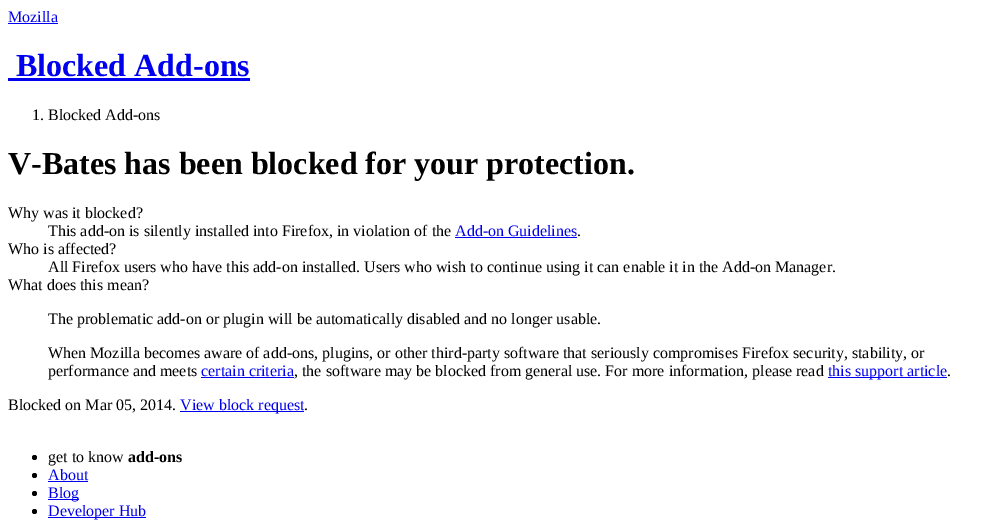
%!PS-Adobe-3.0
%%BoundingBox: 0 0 1004 520
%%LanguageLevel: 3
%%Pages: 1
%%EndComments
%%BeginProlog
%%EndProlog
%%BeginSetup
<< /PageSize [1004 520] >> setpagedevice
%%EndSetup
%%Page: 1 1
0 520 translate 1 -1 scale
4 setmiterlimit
1 setgray
0 0 1004 520 rectfill
0 0 0.933 setrgbcolor
8 23 50 1 rectfill
8 78 242 3 rectfill
455 237 122 1 rectfill
201 377 93 1 rectfill
828 377 119 1 rectfill
180 411 124 1 rectfill
0 setgray
newpath 34.5 457.5 2.5 0 360 arc closepath fill
newpath 34.5 475.5 2.5 0 360 arc closepath fill
0 0 0.933 setrgbcolor
48 481 40 1 rectfill
0 setgray
newpath 34.5 493.5 2.5 0 360 arc closepath fill
0 0 0.933 setrgbcolor
48 499 31 1 rectfill
0 setgray
newpath 34.5 511.5 2.5 0 360 arc closepath fill
0 0 0.933 setrgbcolor
48 517 98 1 rectfill
/LiberationSerif-Regular [16 0 0 -16 0 0] selectfont
8 22 moveto (Mozilla) show
/LiberationSerif-Bold [32 0 0 -32 0 0] selectfont
16 76 moveto (Blocked Add-ons) show
/LiberationSerif-Regular [16 0 0 -16 0 0] selectfont
0 setgray
32 120 moveto (1. Blocked Add-ons) show
/LiberationSerif-Bold [32 0 0 -32 0 0] selectfont
8 174 moveto (V-Bates has been blocked for your protection.) show
/LiberationSerif-Regular [16 0 0 -16 0 0] selectfont
8 218 moveto (Why was it blocked?) show
48 236 moveto (This add-on is silently installed into Firefox, in violation of the) show
0 0 0.933 setrgbcolor
455 236 moveto (Add-on Guidelines) show
0 setgray
577 236 moveto (.) show
8 254 moveto (Who is affected?) show
48 272 moveto (All Firefox users who have this add-on installed. Users who wish to continue using it can enable it in the Add-on Manager.) show
8 290 moveto (What does this mean?) show
48 324 moveto (The problematic add-on or plugin will be automatically disabled and no longer usable.) show
48 358 moveto (When Mozilla becomes aware of add-ons, plugins, or other third-party software that seriously compromises Firefox security, stability, or) show
48 376 moveto (performance and meets) show
0 0 0.933 setrgbcolor
201 376 moveto (certain criteria) show
0 setgray
294 376 moveto (, the software may be blocked from general use. For more information, please read) show
0 0 0.933 setrgbcolor
828 376 moveto (this support article) show
0 setgray
947 376 moveto (.) show
8 410 moveto (Blocked on Mar 05, 2014.) show
0 0 0.933 setrgbcolor
180 410 moveto (View block request) show
0 setgray
304 410 moveto (.) show
48 462 moveto (get to know) show
/LiberationSerif-Bold [16 0 0 -16 0 0] selectfont
128 462 moveto (add-ons) show
/LiberationSerif-Regular [16 0 0 -16 0 0] selectfont
0 0 0.933 setrgbcolor
48 480 moveto (About) show
48 498 moveto (Blog) show
48 516 moveto (Developer Hub) show
showpage
%%EOF
